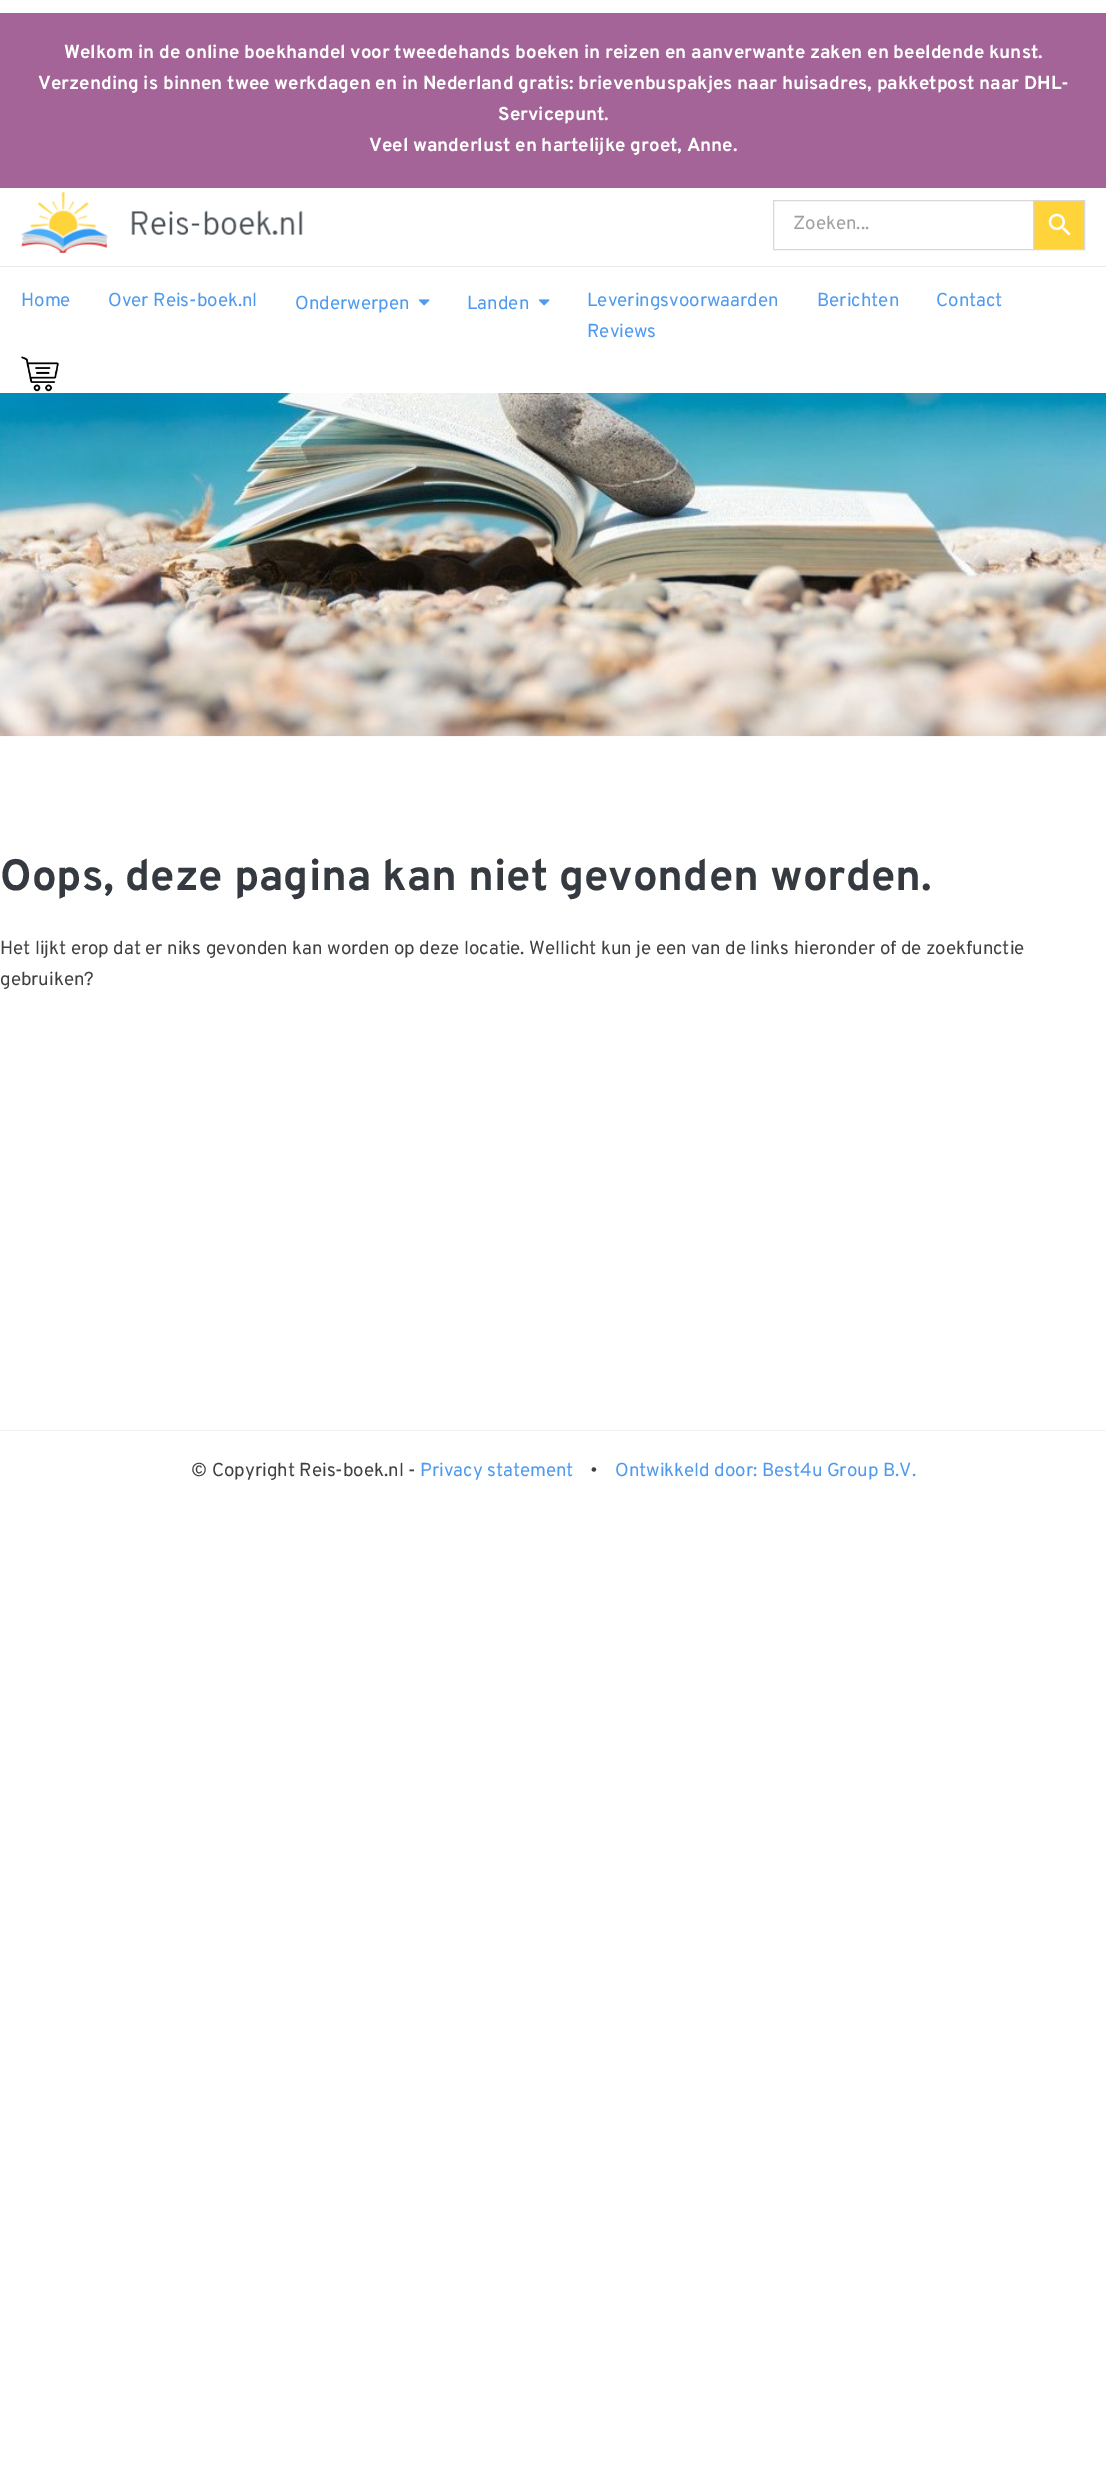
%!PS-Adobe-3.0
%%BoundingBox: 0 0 1106 2470
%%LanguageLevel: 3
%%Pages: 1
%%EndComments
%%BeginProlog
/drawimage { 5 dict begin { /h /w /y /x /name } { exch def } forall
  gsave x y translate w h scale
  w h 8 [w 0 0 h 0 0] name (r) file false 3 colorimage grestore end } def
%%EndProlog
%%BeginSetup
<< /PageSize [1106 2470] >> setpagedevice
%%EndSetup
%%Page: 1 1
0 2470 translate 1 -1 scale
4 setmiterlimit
1 setgray
0 0 1106 2470 rectfill
0.914 0.925 0.937 setrgbcolor
0 266 1106 1 rectfill
0.643 0.392 0.592 setrgbcolor
0 13 1106 175 rectfill
(images/1.raw) 21 191 282 63 drawimage
1 0.831 0.231 setrgbcolor
newpath 1033.5 200.5 moveto 1084.5 200.5 lineto 1084.5 249.5 lineto 1033.5 249.5 lineto closepath gsave fill grestore
0.847 setgray
stroke
773.5 200.5 260 49 rectstroke
(images/2.raw) 1048 213 23 23 drawimage
(images/3.raw) 418 299 12 7 drawimage
(images/3.raw) 538 299 12 7 drawimage
(images/4.raw) 21 356 38 36 drawimage
(images/5.raw) 0 393 1106 344 drawimage
0.945 0.953 0.961 setrgbcolor
0 1430 1106 1 rectfill
/Overpass-Bold [18.75 0 0 -18.75 0 0] selectfont
1 setgray
64 58 moveto (Welkom in de online boekhandel voor tweedehands boeken in reizen en aanverwante zaken en beeldende kunst.) show
38 89 moveto (Verzending is binnen twee werkdagen en in Nederland gratis: brievenbuspakjes naar huisadres, pakketpost naar DHL-) show
498 120 moveto (Servicepunt.) show
369 151 moveto (Veel wanderlust en hartelijke groet, Anne.) show
/Overpass-Regular [18.75 0 0 -18.75 0 0] selectfont
0.627 setgray
793 229 moveto (Zoeken...) show
0.302 0.604 0.941 setrgbcolor
21 306 moveto (Home) show
108 306 moveto (Over Reis-boek.nl) show
295 309 moveto (Onderwerpen) show
467 309 moveto (Landen) show
587 306 moveto (Leveringsvoorwaarden) show
817 306 moveto (Berichten) show
936 306 moveto (Contact) show
587 337 moveto (Reviews) show
/Overpass-Bold [43.75 0 0 -43.75 0 0] selectfont
0.204 0.227 0.251 setrgbcolor
0 890 moveto (Oops, deze pagina kan niet gevonden worden.) show
/Overpass-Regular [18.75 0 0 -18.75 0 0] selectfont
0.251 setgray
0 954 moveto (Het lijkt erop dat er niks gevonden kan worden op deze locatie. Wellicht kun je een van de links hieronder of de zoekfunctie) show
0 985 moveto (gebruiken?) show
191 1476 moveto (© Copyright Reis-boek.nl -) show
0.302 0.604 0.941 setrgbcolor
420 1476 moveto (Privacy statement) show
0.251 setgray
590 1476 moveto (•) show
0.302 0.604 0.941 setrgbcolor
615 1476 moveto (Ontwikkeld door: Best4u Group B.V.) show
showpage
%%EOF
